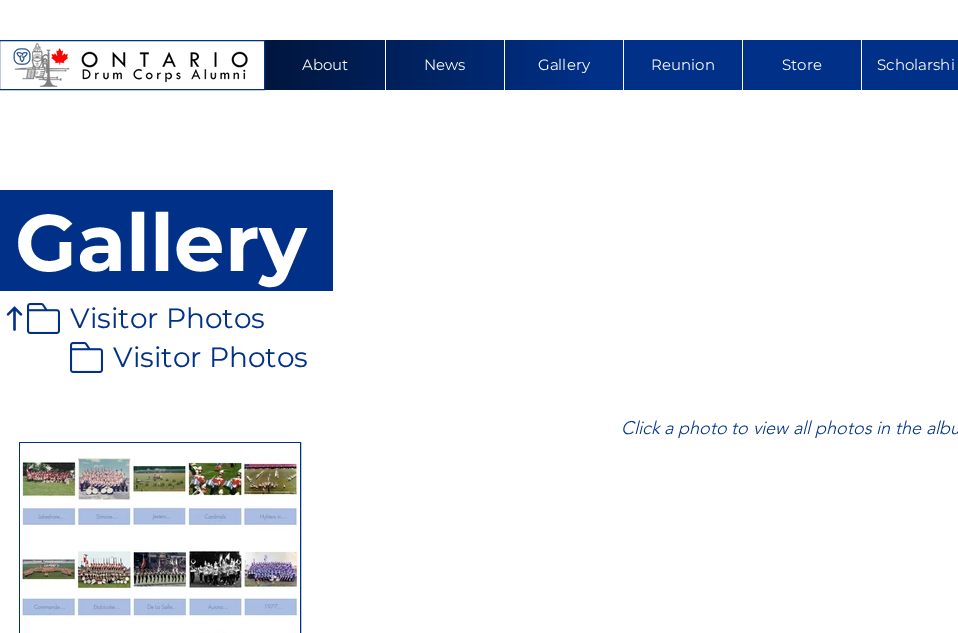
%!PS-Adobe-3.0
%%BoundingBox: 0 0 958 633
%%LanguageLevel: 3
%%Pages: 1
%%EndComments
%%BeginProlog
/drawimage { 5 dict begin { /h /w /y /x /name } { exch def } forall
  gsave x y translate w h scale
  w h 8 [w 0 0 h 0 0] name (r) file false 3 colorimage grestore end } def
%%EndProlog
%%BeginSetup
<< /PageSize [958 633] >> setpagedevice
%%EndSetup
%%Page: 1 1
0 633 translate 1 -1 scale
4 setmiterlimit
1 setgray
0 0 958 633 rectfill
gsave newpath 265 40 moveto 958 40 lineto 958 90 lineto 265 90 lineto closepath clip newpath
<< /ShadingType 2 /ColorSpace /DeviceRGB /Coords [0 65 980 65] /Extend [true true] /Function << /FunctionType 3 /Domain [0 1] /Functions [<< /FunctionType 2 /Domain [0 1] /C0 [0 0 0] /C1 [0 0.188 0.529] /N 1 >> << /FunctionType 2 /Domain [0 1] /C0 [0 0.188 0.529] /C1 [0 0.188 0.529] /N 1 >>] /Bounds [0.6] /Encode [0 1 0 1] >> >> shfill grestore
0 0.188 0.529 setrgbcolor
-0.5 40.5 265 49 rectstroke
(images/1.raw) 13 43 235 44 drawimage
1 setgray
385 40 1 50 rectfill
504 40 1 50 rectfill
623 40 1 50 rectfill
742 40 1 50 rectfill
861 40 1 50 rectfill
0 0.188 0.529 setrgbcolor
0 190 333 101 rectfill
(images/2.raw) 6 306 17 25 drawimage
(images/3.raw) 27 303 33 31 drawimage
(images/4.raw) 70 342 33 31 drawimage
19.5 442.5 281 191 rectstroke
(images/5.raw) 20 443 280 190 drawimage
/Montserrat-Regular [15 0 0 -15 0 0] selectfont
1 setgray
302 70 moveto (About) show
424 70 moveto (News) show
538 70 moveto (Gallery) show
651 70 moveto (Reunion) show
782 70 moveto (Store) show
877 70 moveto (Scholarshi) show
/Montserrat-Bold [80 0 0 -80 0 0] selectfont
15 271 moveto (Gallery) show
/Montserrat-Regular [28 0 0 -28 0 0] selectfont
0 0.188 0.529 setrgbcolor
70 328 moveto (Visitor Photos) show
113 367 moveto (Visitor Photos) show
/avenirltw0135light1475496-LightItalic [18 0 0 -18 0 0] selectfont
621 434 moveto (Click a photo to view all photos in the albu) show
showpage
%%EOF
